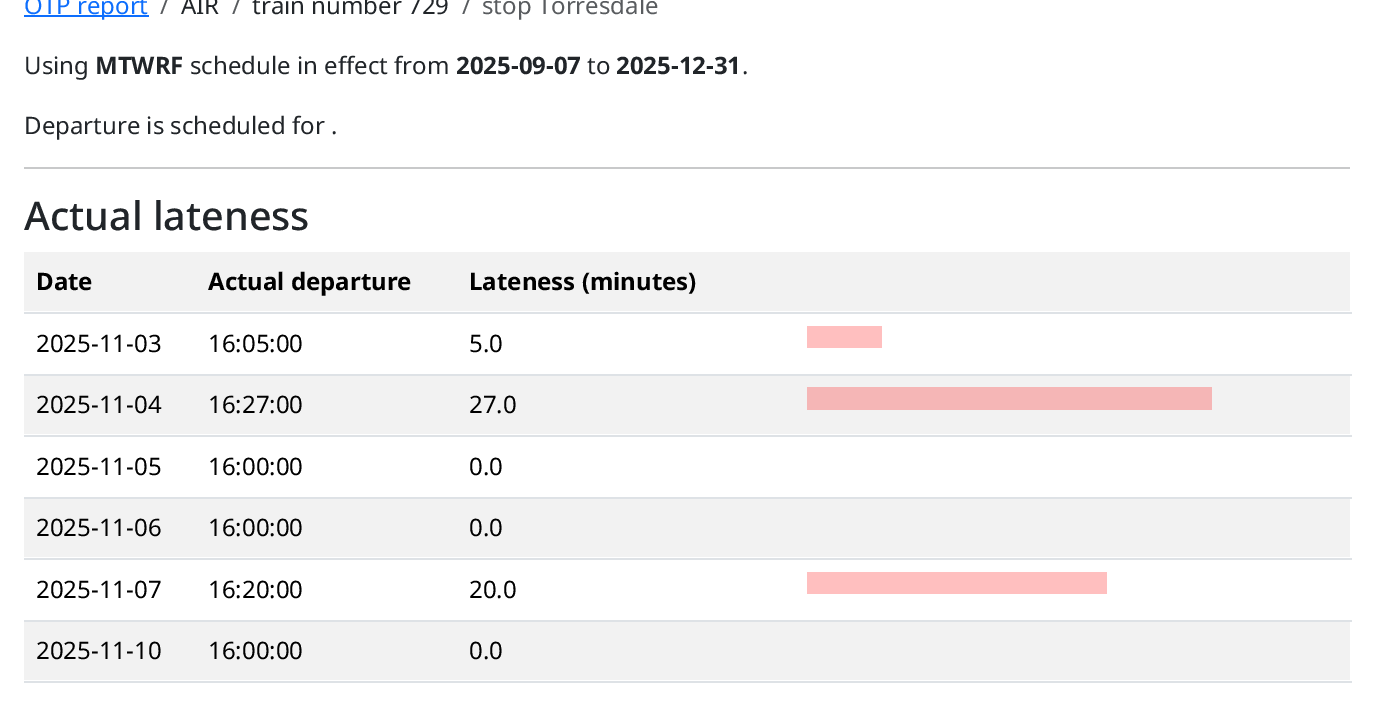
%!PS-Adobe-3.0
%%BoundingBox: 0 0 1373 704
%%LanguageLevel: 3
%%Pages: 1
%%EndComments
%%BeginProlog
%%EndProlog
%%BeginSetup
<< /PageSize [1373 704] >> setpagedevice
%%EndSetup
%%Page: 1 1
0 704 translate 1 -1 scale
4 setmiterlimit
1 setgray
0 0 1373 704 rectfill
0.051 0.431 0.992 setrgbcolor
24 15 125 2 rectfill
0.784 0.788 0.792 setrgbcolor
24 167 1326 2 rectfill
0.949 setgray
24 252 1326 59 rectfill
0.871 0.886 0.902 setrgbcolor
24 312 1328 2 rectfill
24 374 1328 2 rectfill
1 0.749 0.749 setrgbcolor
807 326 75 22 rectfill
0.871 0.886 0.902 setrgbcolor
24 435 1328 2 rectfill
0.949 setgray
24 376 1326 58 rectfill
0.961 0.714 0.714 setrgbcolor
807 387 405 23 rectfill
0.871 0.886 0.902 setrgbcolor
24 497 1328 2 rectfill
0.949 setgray
24 499 1326 58 rectfill
0.871 0.886 0.902 setrgbcolor
24 558 1328 2 rectfill
24 620 1328 2 rectfill
1 0.749 0.749 setrgbcolor
807 572 300 22 rectfill
0.949 setgray
24 622 1326 58 rectfill
0.871 0.886 0.902 setrgbcolor
24 681 1328 2 rectfill
/NotoSans-Regular [24 0 0 -24 0 0] selectfont
0.051 0.431 0.992 setrgbcolor
24 14 moveto (OTP report) show
0.349 0.361 0.373 setrgbcolor
160 14 moveto (/) show
0.129 0.145 0.161 setrgbcolor
181 14 moveto (AIR) show
0.349 0.361 0.373 setrgbcolor
232 14 moveto (/) show
0.129 0.145 0.161 setrgbcolor
252 14 moveto (train number 729) show
0.349 0.361 0.373 setrgbcolor
462 14 moveto (/) show
482 14 moveto (stop Torresdale) show
0.129 0.145 0.161 setrgbcolor
24 74 moveto (Using) show
/NotoSans-Bold [24 0 0 -24 0 0] selectfont
95 74 moveto (MTWRF) show
/NotoSans-Regular [24 0 0 -24 0 0] selectfont
190 74 moveto (schedule in effect from) show
/NotoSans-Bold [24 0 0 -24 0 0] selectfont
456 74 moveto (2025-09-07) show
/NotoSans-Regular [24 0 0 -24 0 0] selectfont
587 74 moveto (to) show
/NotoSans-Bold [24 0 0 -24 0 0] selectfont
616 74 moveto (2025-12-31) show
/NotoSans-Regular [24 0 0 -24 0 0] selectfont
742 74 moveto (.) show
24 134 moveto (Departure is scheduled for .) show
/NotoSans-Medium [39.5 0 0 -39.5 0 0] selectfont
24 230 moveto (Actual lateness) show
/NotoSans-Bold [24 0 0 -24 0 0] selectfont
0 setgray
36 290 moveto (Date) show
208 290 moveto (Actual departure) show
469 290 moveto (Lateness \(minutes\)) show
/NotoSans-Regular [24 0 0 -24 0 0] selectfont
36 352 moveto (2025-11-03) show
208 352 moveto (16:05:00) show
469 352 moveto (5.0) show
36 413 moveto (2025-11-04) show
208 413 moveto (16:27:00) show
469 413 moveto (27.0) show
36 475 moveto (2025-11-05) show
208 475 moveto (16:00:00) show
469 475 moveto (0.0) show
36 536 moveto (2025-11-06) show
208 536 moveto (16:00:00) show
469 536 moveto (0.0) show
36 598 moveto (2025-11-07) show
208 598 moveto (16:20:00) show
469 598 moveto (20.0) show
36 659 moveto (2025-11-10) show
208 659 moveto (16:00:00) show
469 659 moveto (0.0) show
showpage
%%EOF
